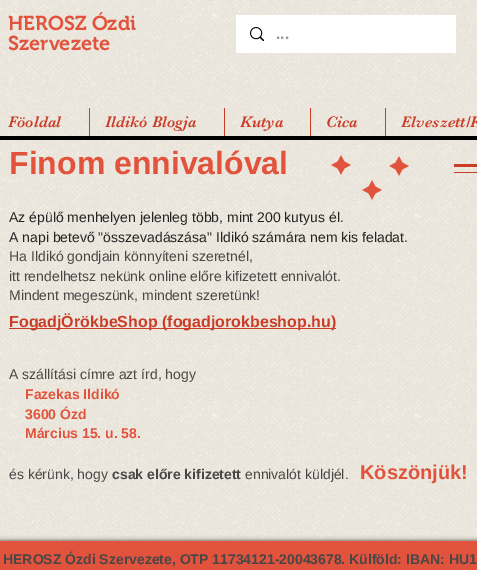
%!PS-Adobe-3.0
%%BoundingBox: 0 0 477 570
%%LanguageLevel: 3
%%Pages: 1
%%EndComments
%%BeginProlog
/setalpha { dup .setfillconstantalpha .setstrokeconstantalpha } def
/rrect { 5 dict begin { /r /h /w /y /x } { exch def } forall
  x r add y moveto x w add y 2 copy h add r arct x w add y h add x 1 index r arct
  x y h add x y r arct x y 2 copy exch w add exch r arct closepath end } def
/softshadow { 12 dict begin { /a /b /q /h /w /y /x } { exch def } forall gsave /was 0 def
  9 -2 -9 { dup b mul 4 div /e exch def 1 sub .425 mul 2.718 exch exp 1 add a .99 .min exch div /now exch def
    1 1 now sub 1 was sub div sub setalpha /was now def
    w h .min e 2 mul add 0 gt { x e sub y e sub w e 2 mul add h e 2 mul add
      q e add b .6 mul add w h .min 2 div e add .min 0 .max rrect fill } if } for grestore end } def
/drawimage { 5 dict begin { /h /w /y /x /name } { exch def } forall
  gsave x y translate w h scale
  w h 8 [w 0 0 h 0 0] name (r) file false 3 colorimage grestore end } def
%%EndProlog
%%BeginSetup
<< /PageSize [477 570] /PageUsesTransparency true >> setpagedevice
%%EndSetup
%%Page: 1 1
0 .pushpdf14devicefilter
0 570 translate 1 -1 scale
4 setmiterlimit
1 setgray
0 0 477 570 rectfill
(images/1.raw) 0 0 477 541 drawimage
236 15 220 38 rectfill
(images/2.raw) 250 27 14 14 drawimage
0 setgray
0 136 477 4 rectfill
0.792 0.235 0.157 setrgbcolor
89 108 1 28 rectfill
224 108 1 28 rectfill
310 108 1 28 rectfill
385 108 1 28 rectfill
(images/3.raw) 331 155 20 20 drawimage
(images/4.raw) 389 156 20 20 drawimage
454 164 23 3 rectfill
454 172 23 1 rectfill
(images/5.raw) 362 180 20 20 drawimage
9 328 327 1 rectfill
0 setgray
0 541 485 29 0 2.5 0.7 softshadow
0.882 0.325 0.235 setrgbcolor
0 541 477 29 rectfill
/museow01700-SemiBold [20 0 0 -20 0 0] selectfont
8 30 moveto (HEROSZ Ózdi) show
8 50 moveto (Szervezete) show
/LiberationSans-Bold [16 0 0 -16 0 0] selectfont
0.6 setgray
276 39 moveto (...) show
/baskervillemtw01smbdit-Regular [16 0 0 -16 0 0] selectfont
0.792 0.235 0.157 setrgbcolor
8 127 moveto (Föoldal) show
105 127 moveto (Ildikó Blogja) show
240 127 moveto (Kutya) show
326 127 moveto (Cica) show
401 127 moveto (Elveszett/K) show
/LiberationSans-Bold [32 0 0 -32 0 0] selectfont
0.882 0.325 0.235 setrgbcolor
9 174 moveto (Finom ennivalóval) show
/LiberationSans-Regular [14 0 0 -14 0 0] selectfont
0.137 setgray
9 222 moveto (Az épülő menhelyen jelenleg több, mint 200 kutyus él.) show
9 242 moveto (A napi betevő "összevadászása" Ildikó számára nem kis feladat.) show
0.286 0.275 0.275 setrgbcolor
9 261 moveto (Ha Ildikó gondjain könnyíteni szeretnél,) show
9 281 moveto (itt rendelhetsz nekünk online előre kifizetett ennivalót.) show
9 300 moveto (Mindent megeszünk, mindent szeretünk!) show
/LiberationSans-Bold [16 0 0 -16 0 0] selectfont
0.792 0.235 0.157 setrgbcolor
9 327 moveto (FogadjÖrökbeShop \(fogadjorokbeshop.hu\)) show
/LiberationSans-Regular [14 0 0 -14 0 0] selectfont
0.286 0.275 0.275 setrgbcolor
9 379 moveto (A szállítási címre azt írd, hogy) show
/LiberationSans-Bold [14 0 0 -14 0 0] selectfont
0.882 0.325 0.235 setrgbcolor
25 399 moveto (Fazekas Ildikó) show
25 419 moveto (3600 Ózd) show
25 438 moveto (Március 15. u. 58.) show
/LiberationSans-Regular [14 0 0 -14 0 0] selectfont
0.286 0.275 0.275 setrgbcolor
9 479 moveto (és kérünk, hogy) show
/LiberationSans-Bold [14 0 0 -14 0 0] selectfont
112 479 moveto (csak előre kifizetett) show
/LiberationSans-Regular [14 0 0 -14 0 0] selectfont
245 479 moveto (ennivalót küldjél.) show
/LiberationSans-Bold [20 0 0 -20 0 0] selectfont
0.882 0.325 0.235 setrgbcolor
360 479 moveto (Köszönjük!) show
/LiberationSans-Bold [14 0 0 -14 0 0] selectfont
0.286 0.275 0.275 setrgbcolor
3 564 moveto (HEROSZ Ózdi Szervezete, OTP 11734121-20043678. Külföld: IBAN: HU1) show
.poppdf14devicefilter showpage
%%EOF
